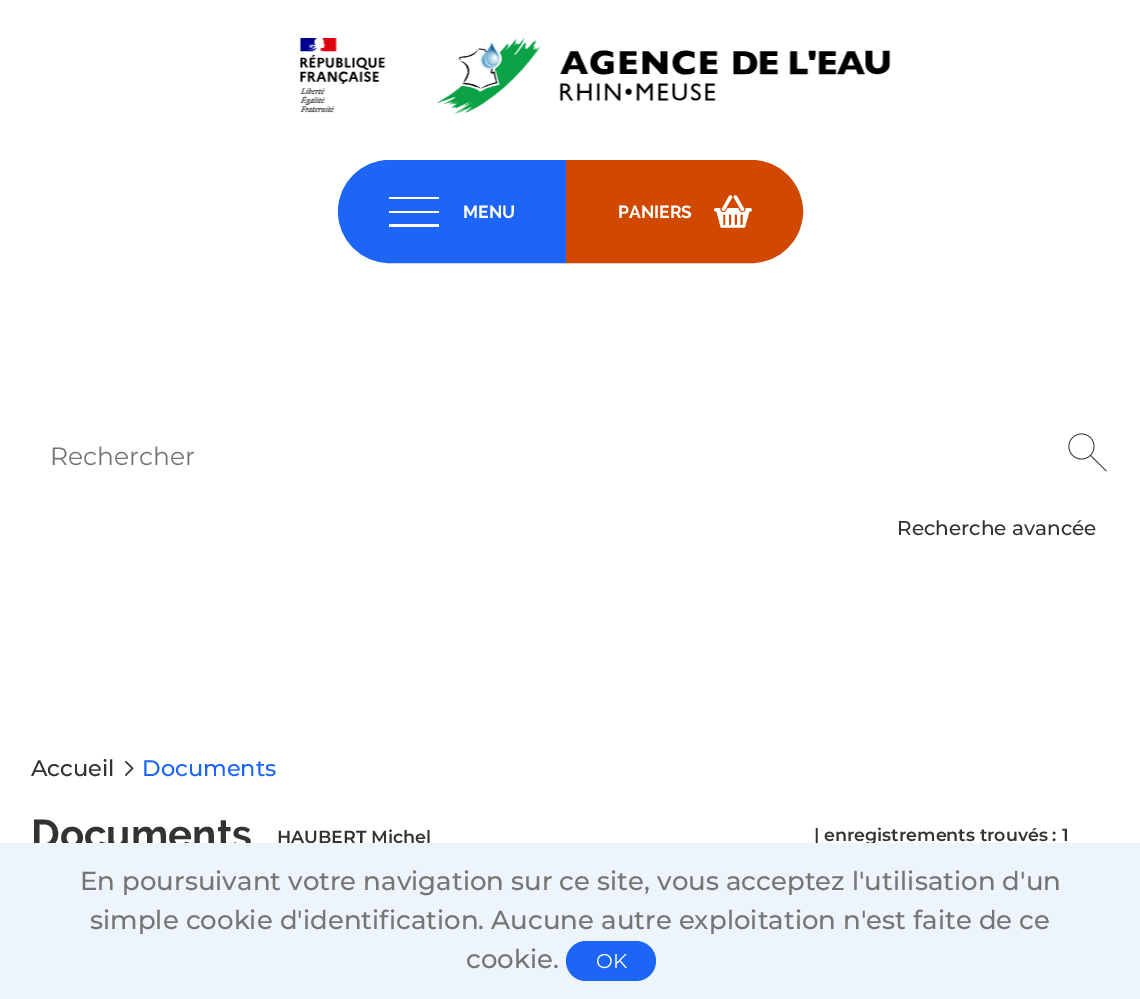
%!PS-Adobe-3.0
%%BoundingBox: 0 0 1140 999
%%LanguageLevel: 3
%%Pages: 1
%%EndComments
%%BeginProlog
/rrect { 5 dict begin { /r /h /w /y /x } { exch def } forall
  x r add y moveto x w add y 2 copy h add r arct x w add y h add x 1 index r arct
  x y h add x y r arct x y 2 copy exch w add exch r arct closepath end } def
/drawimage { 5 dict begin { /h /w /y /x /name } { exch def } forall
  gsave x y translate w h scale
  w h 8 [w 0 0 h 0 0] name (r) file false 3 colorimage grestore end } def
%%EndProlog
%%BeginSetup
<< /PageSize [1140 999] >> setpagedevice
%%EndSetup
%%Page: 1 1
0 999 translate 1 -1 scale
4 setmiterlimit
1 setgray
0 0 1140 999 rectfill
(images/1.raw) 299 38 87 75 drawimage
(images/2.raw) 436 38 455 76 drawimage
0.11 0.396 0.965 setrgbcolor
newpath 389.5 160.5 moveto 565.5 160.5 lineto 565.5 262.5 lineto 389.5 262.5 lineto 361.5 262.5 338.5 239.5 338.5 211.5 curveto 338.5 183.5 361.5 160.5 389.5 160.5 curveto closepath gsave fill grestore
stroke
1 setgray
newpath 389 227 moveto 439 227 lineto 439 224 lineto 389 224 lineto closepath 389 213 moveto 439 213 lineto 439 211 lineto 389 211 lineto closepath 389 197 moveto 389 199 lineto 439 199 lineto 439 197 lineto closepath eofill
0.82 0.286 0 setrgbcolor
newpath 566.5 160.5 moveto 751.5 160.5 lineto 779.5 160.5 802.5 183.5 802.5 211.5 curveto 802.5 239.5 779.5 262.5 751.5 262.5 curveto 566.5 262.5 lineto closepath gsave fill grestore
stroke
(images/3.raw) 1068 433 39 39 drawimage
/Raleway-Bold [17.5 0 0 -17.5 0 0] selectfont
1 setgray
463 218 moveto (MENU) show
618 218 moveto (PANIERS) show
/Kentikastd-Regular [38 0 0 -38 0 0] selectfont
714 228 moveto (G) show
/Montserrat-Regular [25 0 0 -25 0 0] selectfont
0.459 setgray
50 465 moveto (Rechercher) show
/Montserrat-Medium [20 0 0 -20 0 0] selectfont
0.2 setgray
897 535 moveto (Recherche avancée) show
/Montserrat-Medium [22.5 0 0 -22.5 0 0] selectfont
31 776 moveto (Accueil) show
/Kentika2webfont-Regular [15 0 0 -15 0 0] selectfont
121 775 moveto (a) show
/Montserrat-Medium [22.5 0 0 -22.5 0 0] selectfont
0.11 0.396 0.965 setrgbcolor
142 776 moveto (Documents) show
/Raleway-Bold [40 0 0 -40 0 0] selectfont
0.2 setgray
31 848 moveto (Documents) show
/Montserrat-SemiBold [17.5 0 0 -17.5 0 0] selectfont
277 843 moveto (HAUBERT Michel) show
814 841 moveto (| enregistrements trouvés : 1) show
0.929 0.957 0.984 setrgbcolor
0 843 1140 156 rectfill
/Montserrat-Medium [26 0 0 -26 0 0] selectfont
0.459 setgray
80 890 moveto (En poursuivant votre navigation sur ce site, vous acceptez l'utilisation d'un) show
90 929 moveto (simple cookie d'identification. Aucune autre exploitation n'est faite de ce) show
466 968 moveto (cookie.) show
0.11 0.396 0.965 setrgbcolor
566 941 90 40 20 rrect fill
/Montserrat-Regular [20 0 0 -20 0 0] selectfont
1 setgray
596 968 moveto (OK) show
showpage
%%EOF
